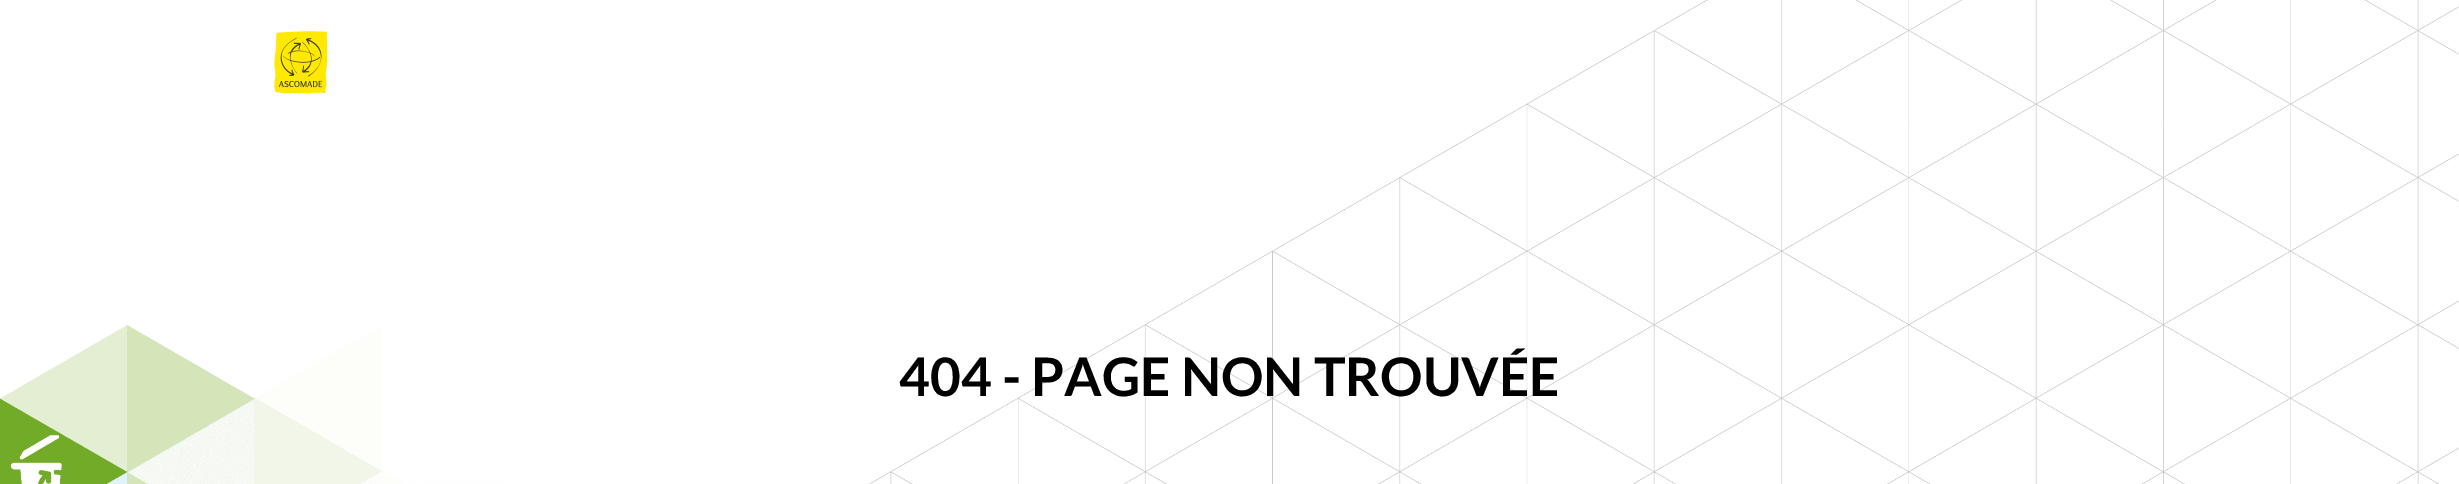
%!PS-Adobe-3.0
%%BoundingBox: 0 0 2459 484
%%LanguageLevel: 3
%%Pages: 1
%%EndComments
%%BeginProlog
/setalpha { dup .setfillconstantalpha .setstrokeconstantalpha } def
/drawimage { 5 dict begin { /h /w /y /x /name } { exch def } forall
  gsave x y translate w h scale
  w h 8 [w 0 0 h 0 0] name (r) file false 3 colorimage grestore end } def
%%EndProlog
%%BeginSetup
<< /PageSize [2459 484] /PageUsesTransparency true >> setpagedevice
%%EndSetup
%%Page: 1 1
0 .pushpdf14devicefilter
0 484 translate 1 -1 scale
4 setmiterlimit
1 setgray
0 0 2459 484 rectfill
(images/1.raw) 0 0 2459 484 drawimage
0.1 setalpha
1491 124 836 1 rectfill
1 setalpha
(images/2.raw) 274 31 54 63 drawimage
/Lato-Bold [53.1 0 0 -53.1 0 0] selectfont
0 setgray
899 396 moveto (404 - PAGE NON TROUVÉE) show
.poppdf14devicefilter showpage
%%EOF
